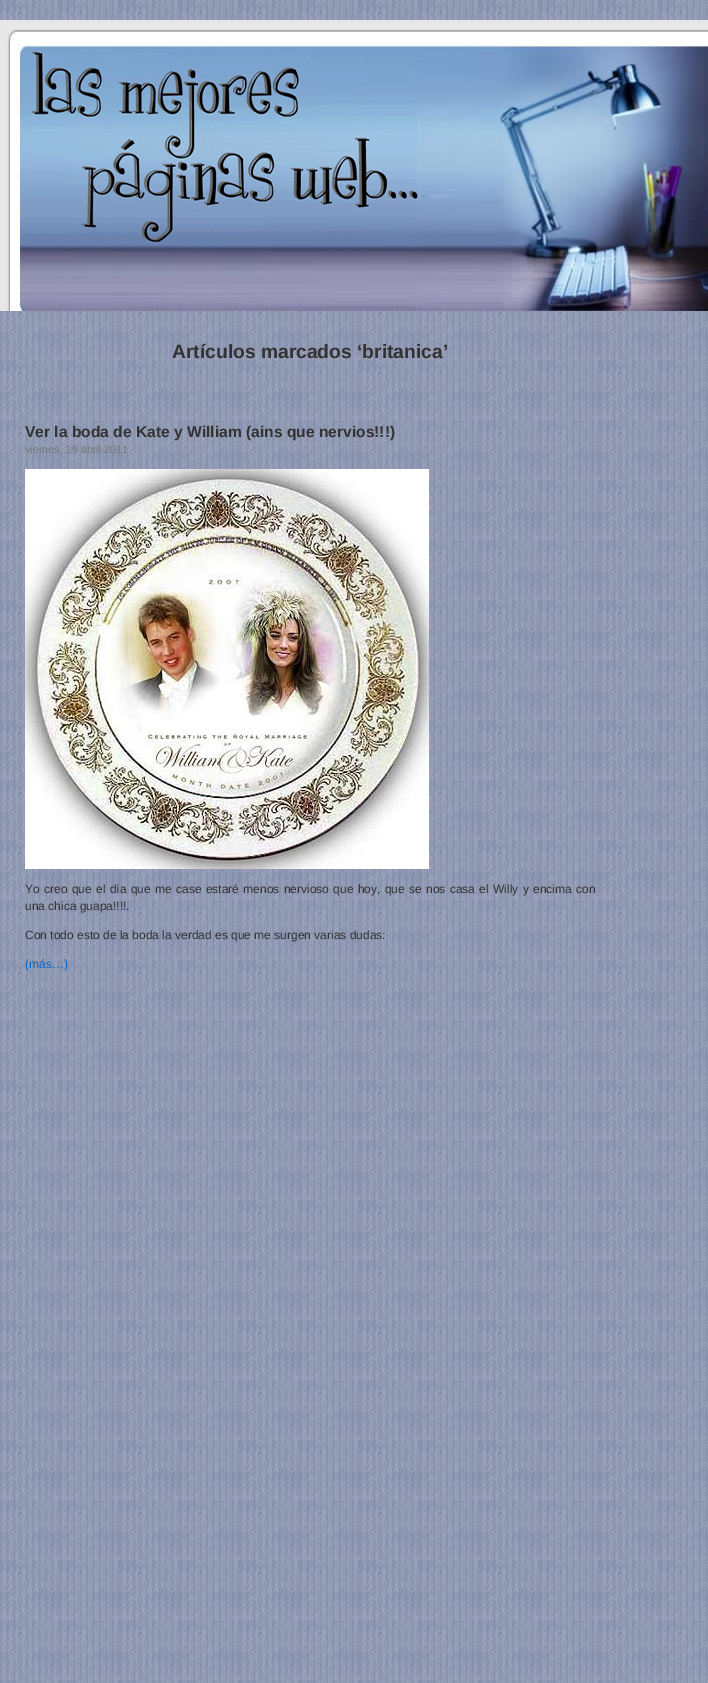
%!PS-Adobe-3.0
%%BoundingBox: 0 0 708 1683
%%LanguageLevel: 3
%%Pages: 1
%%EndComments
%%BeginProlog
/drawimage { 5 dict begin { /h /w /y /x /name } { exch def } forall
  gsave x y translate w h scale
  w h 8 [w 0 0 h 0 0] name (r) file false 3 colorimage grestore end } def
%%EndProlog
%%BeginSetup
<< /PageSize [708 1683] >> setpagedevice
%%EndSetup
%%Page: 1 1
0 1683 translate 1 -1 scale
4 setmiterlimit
1 setgray
0 0 708 1683 rectfill
(images/1.raw) 0 0 708 1683 drawimage
(images/2.raw) 0 20 1 291 drawimage
(images/3.raw) 1 20 707 291 drawimage
(images/4.raw) 25 48 396 196 drawimage
(images/5.raw) 25 469 404 400 drawimage
/LiberationSans-Bold [19.25 0 0 -19.25 0 0] selectfont
0.2 setgray
172 358 moveto (Artículos marcados ‘britanica’) show
/LiberationSans-Bold [15.6 0 0 -15.6 0 0] selectfont
25 437 moveto (Ver la boda de Kate y William \(ains que nervios!!!\)) show
/LiberationSans-Regular [10.75 0 0 -10.75 0 0] selectfont
0.467 setgray
25 453 moveto (viernes, 29 abril 2011) show
/LiberationSans-Regular [12 0 0 -12 0 0] selectfont
0.2 setgray
25 893 moveto 1 0 32 (Yo creo que el día que me case estaré menos nervioso que hoy, que se nos casa el Willy y encima con) widthshow
25 910 moveto (una chica guapa!!!!.) show
25 939 moveto (Con todo esto de la boda la verdad es que me surgen varias dudas:) show
0 0.4 0.8 setrgbcolor
25 968 moveto (\(más…\)) show
showpage
%%EOF
